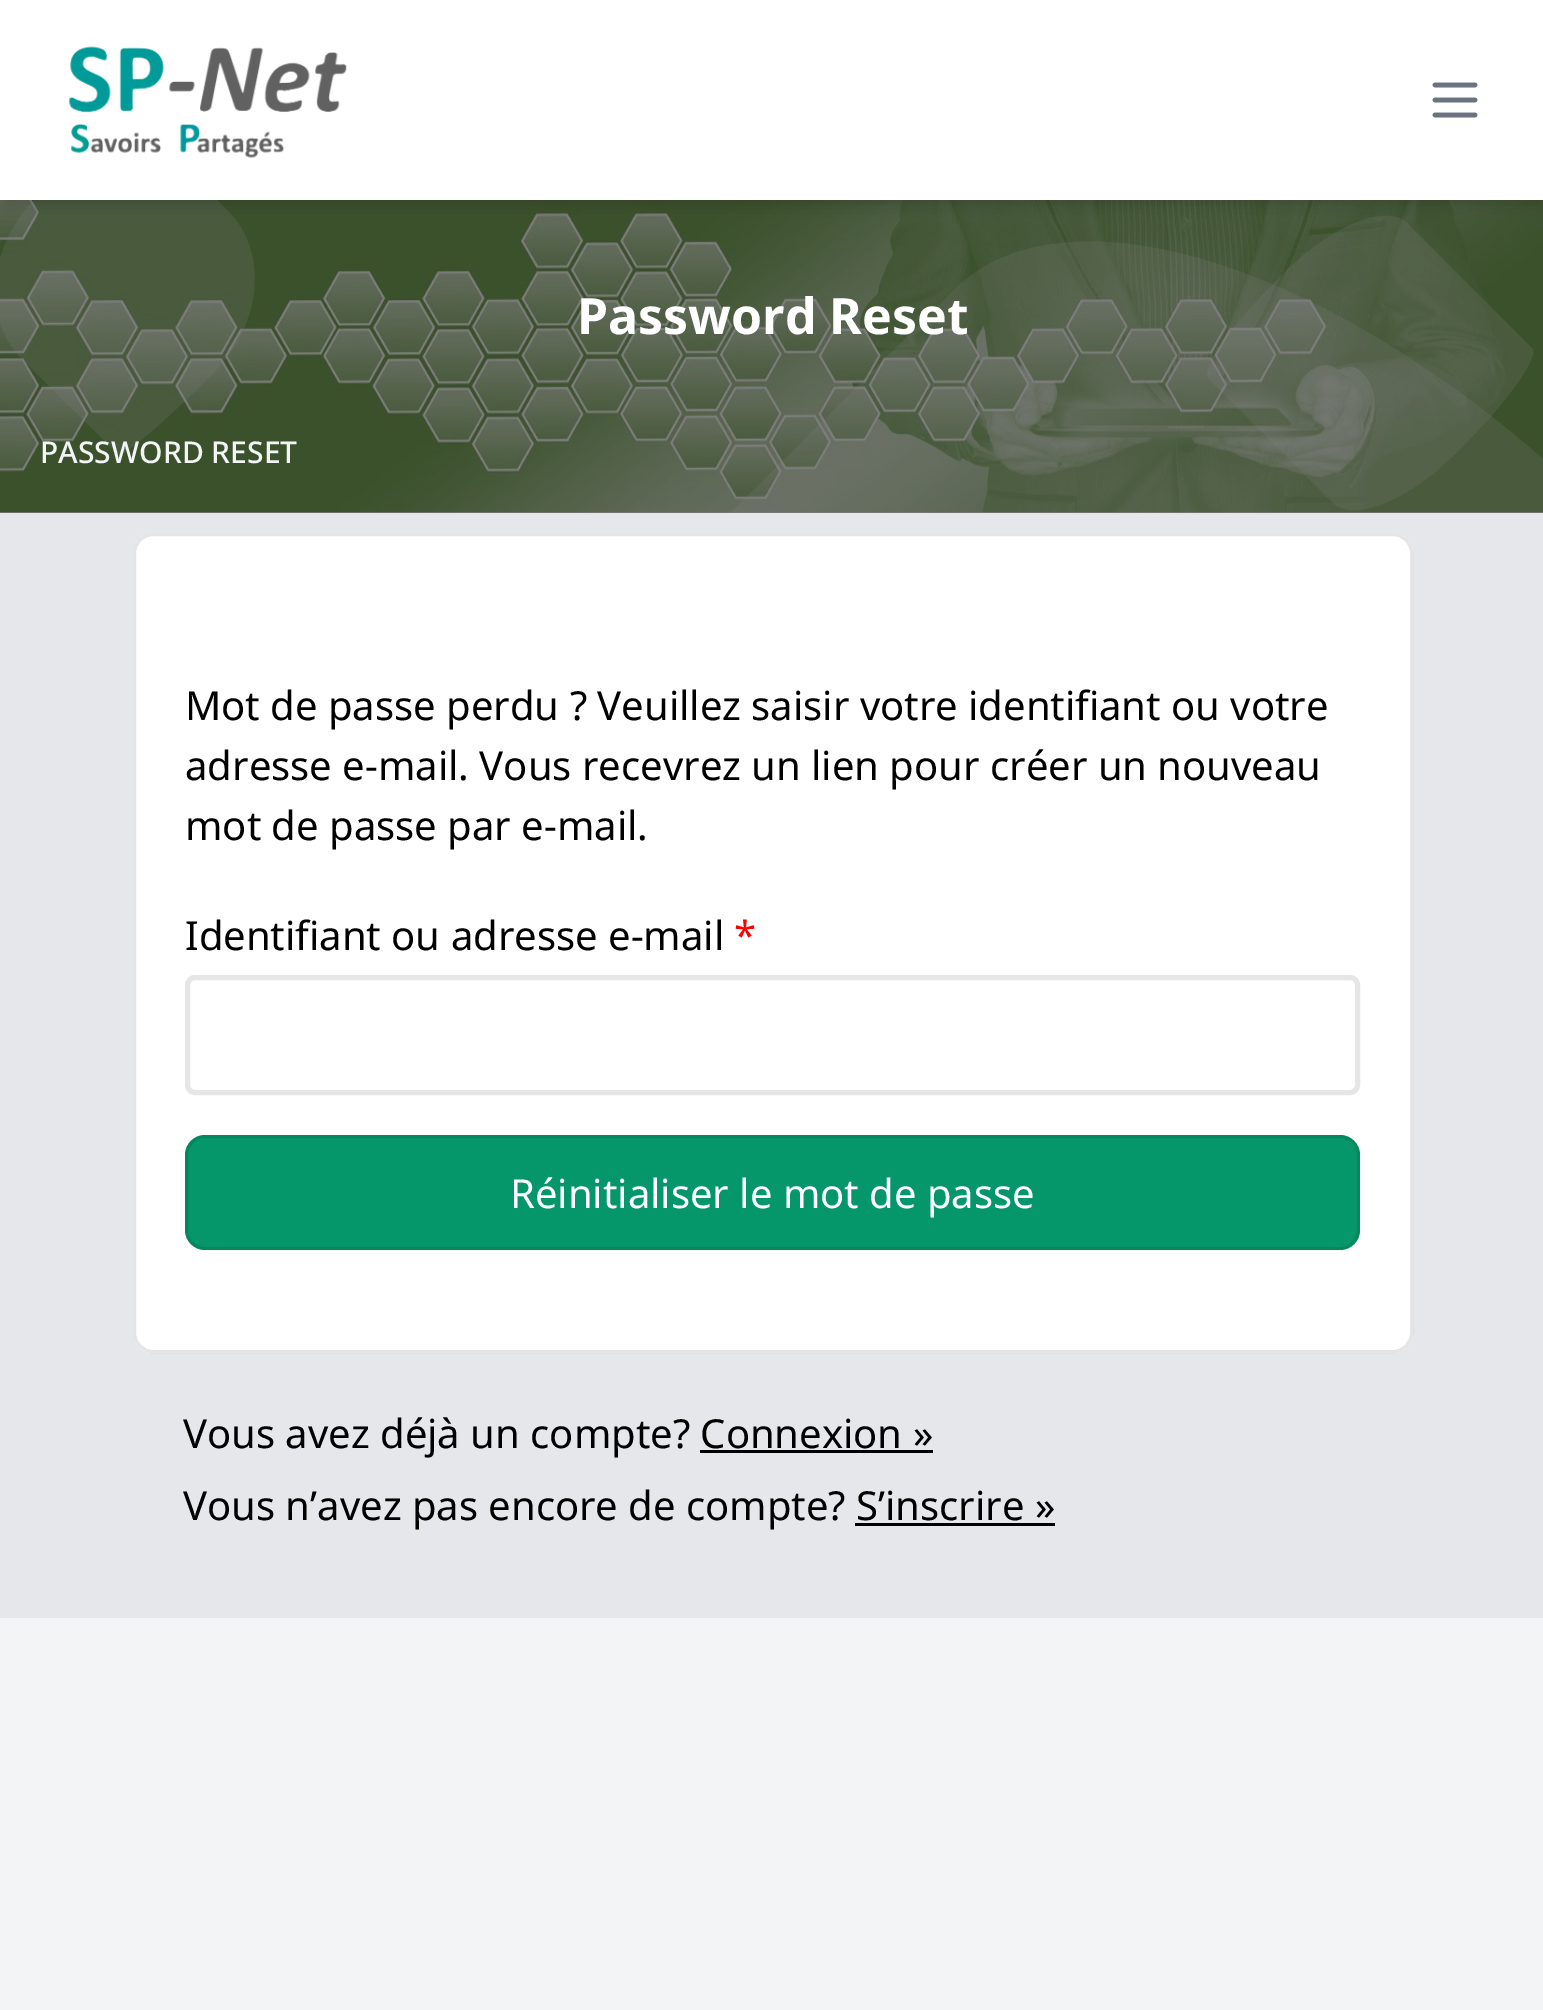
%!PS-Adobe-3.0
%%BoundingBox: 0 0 1543 2010
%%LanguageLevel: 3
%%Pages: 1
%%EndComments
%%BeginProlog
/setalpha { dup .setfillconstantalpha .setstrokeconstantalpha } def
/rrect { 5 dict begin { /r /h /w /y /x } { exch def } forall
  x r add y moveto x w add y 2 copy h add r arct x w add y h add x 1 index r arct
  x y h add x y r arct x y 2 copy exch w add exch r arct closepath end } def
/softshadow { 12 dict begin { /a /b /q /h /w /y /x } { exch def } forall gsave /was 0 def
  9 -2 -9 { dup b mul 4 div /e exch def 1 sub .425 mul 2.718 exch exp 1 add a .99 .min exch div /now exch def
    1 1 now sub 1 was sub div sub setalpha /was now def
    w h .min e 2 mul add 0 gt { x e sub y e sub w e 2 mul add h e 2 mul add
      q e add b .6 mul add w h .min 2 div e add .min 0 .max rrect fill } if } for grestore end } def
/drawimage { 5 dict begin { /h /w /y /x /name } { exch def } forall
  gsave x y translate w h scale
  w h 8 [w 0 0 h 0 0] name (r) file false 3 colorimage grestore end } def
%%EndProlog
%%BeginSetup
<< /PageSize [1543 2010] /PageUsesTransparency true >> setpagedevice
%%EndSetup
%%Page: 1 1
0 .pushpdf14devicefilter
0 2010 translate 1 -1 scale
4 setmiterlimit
0.953 0.957 0.965 setrgbcolor
0 0 1543 2010 rectfill
0.478 0.478 0.482 setrgbcolor
0 512 1543 1 rectfill
(images/3.raw) 0 200 1543 313 drawimage
0.2 setalpha
0.502 setgray
newpath 132 116 moveto 228 211 lineto 269 252 262 325 213 373 curveto 165 422 122 458 118 454 curveto 22 359 lineto -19 318 -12 245 37 197 curveto 85 148 128 112 132 116 curveto closepath fill
newpath 1407 223 moveto 1532 348 lineto 1540 356 1507 403 1458 451 curveto 1410 500 1354 523 1333 503 curveto 1208 378 lineto 1200 370 1233 323 1282 275 curveto 1330 226 1386 203 1407 223 curveto closepath fill
1 setalpha
0 setgray
3 8 1540 195 0 5 0.06 softshadow
3 13 1540 195 0 7.5 0.1 softshadow
1 setgray
0 0 1543 200 rectfill
(images/1.raw) 68 46 279 112 drawimage
(images/2.raw) 1432 82 46 36 drawimage
gsave
0 160 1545 353 rectclip
0.2 setalpha
0.502 setgray
newpath 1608 520 moveto 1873 785 lineto 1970 882 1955 1056 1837 1174 curveto 1378 1633 lineto 1261 1750 968 1648 724 1403 curveto 459 1138 lineto 361 1041 377 867 494 749 curveto 954 290 lineto 1071 173 1364 275 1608 520 curveto closepath fill
grestore
0.898 0.906 0.922 setrgbcolor
0 513 1543 1105 rectfill
1 setgray
133 533 1280 820 20 rrect fill
0.1 setalpha
0 setgray
3 setlinewidth
134.5 534.5 1277 817 18.5 rrect stroke
1 setalpha
0.902 setgray
5 setlinewidth
187.5 977.5 1170 115 7.5 rrect stroke
0.02 0.588 0.412 setrgbcolor
185 1135 1175 115 20 rrect fill
0.1 setalpha
0 setgray
3 setlinewidth
186.5 1136.5 1172 112 18.5 rrect stroke
1 setalpha
700 1450 233 3 rectfill
855 1523 200 3 rectfill
/NotoSans-Bold [50 0 0 -50 0 0] selectfont
1 setgray
577 334 moveto (Password Reset) show
/NotoSans-Medium [30 0 0 -30 0 0] selectfont
0.953 0.957 0.965 setrgbcolor
40 463 moveto (PASSWORD RESET) show
/NotoSans-Regular [40 0 0 -40 0 0] selectfont
0 setgray
185 720 moveto (Mot de passe perdu ? Veuillez saisir votre identifiant ou votre) show
185 780 moveto (adresse e-mail. Vous recevrez un lien pour créer un nouveau) show
185 840 moveto (mot de passe par e-mail.) show
185 950 moveto (Identifiant ou adresse e-mail) show
1 0 0 setrgbcolor
734 950 moveto (*) show
1 setgray
510 1208 moveto (Réinitialiser le mot de passe) show
0 setgray
183 1448 moveto (Vous avez déjà un compte? Connexion ») show
183 1520 moveto (Vous n’avez pas encore de compte? S’inscrire ») show
.poppdf14devicefilter showpage
%%EOF
